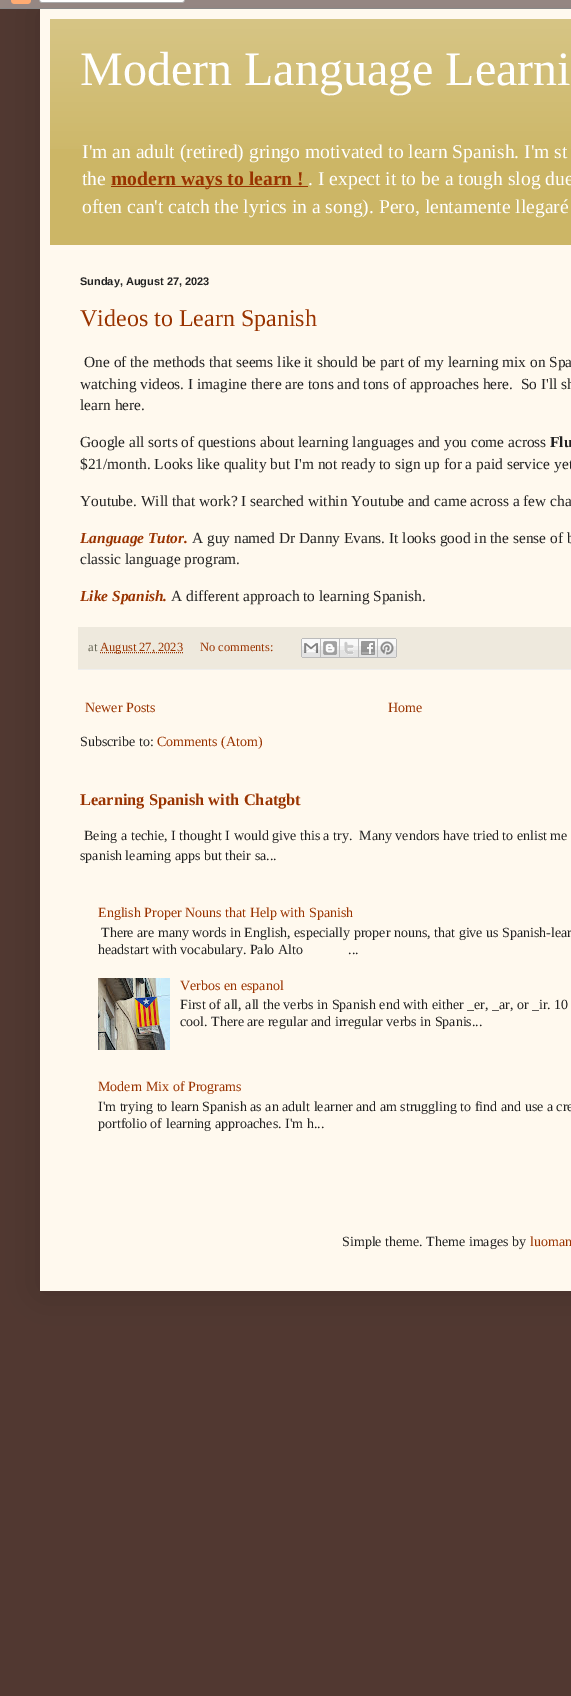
%!PS-Adobe-3.0
%%BoundingBox: 0 0 571 1696
%%LanguageLevel: 3
%%Pages: 1
%%EndComments
%%BeginProlog
/setalpha { dup .setfillconstantalpha .setstrokeconstantalpha } def
/rrect { 5 dict begin { /r /h /w /y /x } { exch def } forall
  x r add y moveto x w add y 2 copy h add r arct x w add y h add x 1 index r arct
  x y h add x y r arct x y 2 copy exch w add exch r arct closepath end } def
/softshadow { 12 dict begin { /a /b /q /h /w /y /x } { exch def } forall gsave /was 0 def
  9 -2 -9 { dup b mul 4 div /e exch def 1 sub .425 mul 2.718 exch exp 1 add a .99 .min exch div /now exch def
    1 1 now sub 1 was sub div sub setalpha /was now def
    w h .min e 2 mul add 0 gt { x e sub y e sub w e 2 mul add h e 2 mul add
      q e add b .6 mul add w h .min 2 div e add .min 0 .max rrect fill } if } for grestore end } def
/drawimage { 5 dict begin { /h /w /y /x /name } { exch def } forall
  gsave x y translate w h scale
  w h 8 [w 0 0 h 0 0] name (r) file false 3 colorimage grestore end } def
%%EndProlog
%%BeginSetup
<< /PageSize [571 1696] /PageUsesTransparency true >> setpagedevice
%%EndSetup
%%Page: 1 1
0 .pushpdf14devicefilter
0 1696 translate 1 -1 scale
4 setmiterlimit
0.318 0.22 0.192 setrgbcolor
0 0 571 1696 rectfill
0 setgray
40 9 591 1282 0 20 0.15 softshadow
(images/1.raw) 0 0 571 9 drawimage
1 0.976 0.933 setrgbcolor
40 9 531 1282 rectfill
0.8 0.714 0.4 setrgbcolor
50 19 521 226 rectfill
(images/2.raw) 50 19 521 130 drawimage
0.6 0.2 0 setrgbcolor
111 186 197 1 rectfill
0.933 0.914 0.867 setrgbcolor
78 627 493 42 rectfill
0.933 setgray
78 669 493 1 rectfill
0.6 0.2 0 setrgbcolor
[1 1] 0 setdash
newpath 100 652.5 moveto 184 652.5 lineto stroke
(images/3.raw) 301 638 20 20 drawimage
(images/4.raw) 321 638 19 20 drawimage
(images/5.raw) 340 638 19 20 drawimage
(images/6.raw) 359 638 19 20 drawimage
(images/7.raw) 378 638 19 20 drawimage
(images/8.raw) 98 978 72 72 drawimage
/LiberationSerif-Regular [48 0 0 -48 0 0] selectfont
1 setgray
80 85 moveto (Modern Language Learni) show
/LiberationSerif-Regular [19.6 0 0 -19.6 0 0] selectfont
82 158 moveto (I'm an adult \(retired\) gringo motivated to learn Spanish. I'm st) show
82 185 moveto (the) show
/LiberationSerif-Bold [19.6 0 0 -19.6 0 0] selectfont
0.6 0.2 0 setrgbcolor
111 185 moveto (modern ways to learn !) show
/LiberationSerif-Regular [19.6 0 0 -19.6 0 0] selectfont
1 setgray
308 185 moveto (. I expect it to be a tough slog due) show
82 213 moveto (often can't catch the lyrics in a song\). Pero, lentamente llegaré) show
/LiberationSans-Bold [11 0 0 -11 0 0] selectfont
0.133 setgray
80 285 moveto (Sunday, August 27, 2023) show
/LiberationSerif-Regular [24 0 0 -24 0 0] selectfont
0.6 0.2 0 setrgbcolor
80 326 moveto (Videos to Learn Spanish) show
/LiberationSerif-Regular [15.4 0 0 -15.4 0 0] selectfont
0.133 setgray
84 367 moveto (One of the methods that seems like it should be part of my learning mix on Spa) show
80 389 moveto (watching videos. I imagine there are tons and tons of approaches here.  So I'll sh) show
80 410 moveto (learn here.) show
80 447 moveto (Google all sorts of questions about learning languages and you come across) show
/LiberationSerif-Bold [15.4 0 0 -15.4 0 0] selectfont
550 447 moveto (Flu) show
/LiberationSerif-Regular [15.4 0 0 -15.4 0 0] selectfont
80 469 moveto ($21/month. Looks like quality but I'm not ready to sign up for a paid service yet) show
80 506 moveto (Youtube. Will that work? I searched within Youtube and came across a few cha) show
/LiberationSerif-BoldItalic [15.4 0 0 -15.4 0 0] selectfont
0.6 0.2 0 setrgbcolor
80 543 moveto (Language Tutor.) show
/LiberationSerif-Regular [15.4 0 0 -15.4 0 0] selectfont
0.133 setgray
192 543 moveto (A guy named Dr Danny Evans. It looks good in the sense of b) show
80 564 moveto (classic language program.) show
/LiberationSerif-BoldItalic [15.4 0 0 -15.4 0 0] selectfont
0.6 0.2 0 setrgbcolor
80 601 moveto (Like Spanish.) show
/LiberationSerif-Regular [15.4 0 0 -15.4 0 0] selectfont
0.133 setgray
171 601 moveto (A different approach to learning Spanish.) show
/LiberationSerif-Regular [12.5 0 0 -12.5 0 0] selectfont
0.4 0.396 0.333 setrgbcolor
88 651 moveto (at) show
0.6 0.2 0 setrgbcolor
100 651 moveto (August 27, 2023) show
200 651 moveto (No comments:) show
/LiberationSerif-Regular [14 0 0 -14 0 0] selectfont
85 712 moveto (Newer Posts) show
388 712 moveto (Home) show
0.133 setgray
80 746 moveto (Subscribe to:) show
0.6 0.2 0 setrgbcolor
157 746 moveto (Comments \(Atom\)) show
/LiberationSerif-Bold [16.4 0 0 -16.4 0 0] selectfont
80 805 moveto (Learning Spanish with Chatgbt) show
/LiberationSerif-Regular [14 0 0 -14 0 0] selectfont
0.133 setgray
84 840 moveto (Being a techie, I thought I would give this a try.  Many vendors have tried to enlist me) show
80 860 moveto (spanish learning apps but their sa...) show
0.6 0.2 0 setrgbcolor
98 917 moveto (English Proper Nouns that Help with Spanish) show
0.133 setgray
101 937 moveto (There are many words in English, especially proper nouns, that give us Spanish-lear) show
98 954 moveto (headstart with vocabulary. Palo Alto             ...) show
0.6 0.2 0 setrgbcolor
180 990 moveto (Verbos en espanol) show
0.133 setgray
180 1009 moveto (First of all, all the verbs in Spanish end with either _er, _ar, or _ir. 10) show
180 1026 moveto (cool. There are regular and irregular verbs in Spanis...) show
0.6 0.2 0 setrgbcolor
98 1091 moveto (Modern Mix of Programs) show
0.133 setgray
98 1111 moveto (I'm trying to learn Spanish as an adult learner and am struggling to find and use a cre) show
98 1128 moveto (portfolio of learning approaches. I'm h...) show
342 1246 moveto (Simple theme. Theme images by) show
0.6 0.2 0 setrgbcolor
530 1246 moveto (luoman) show
.poppdf14devicefilter showpage
%%EOF
